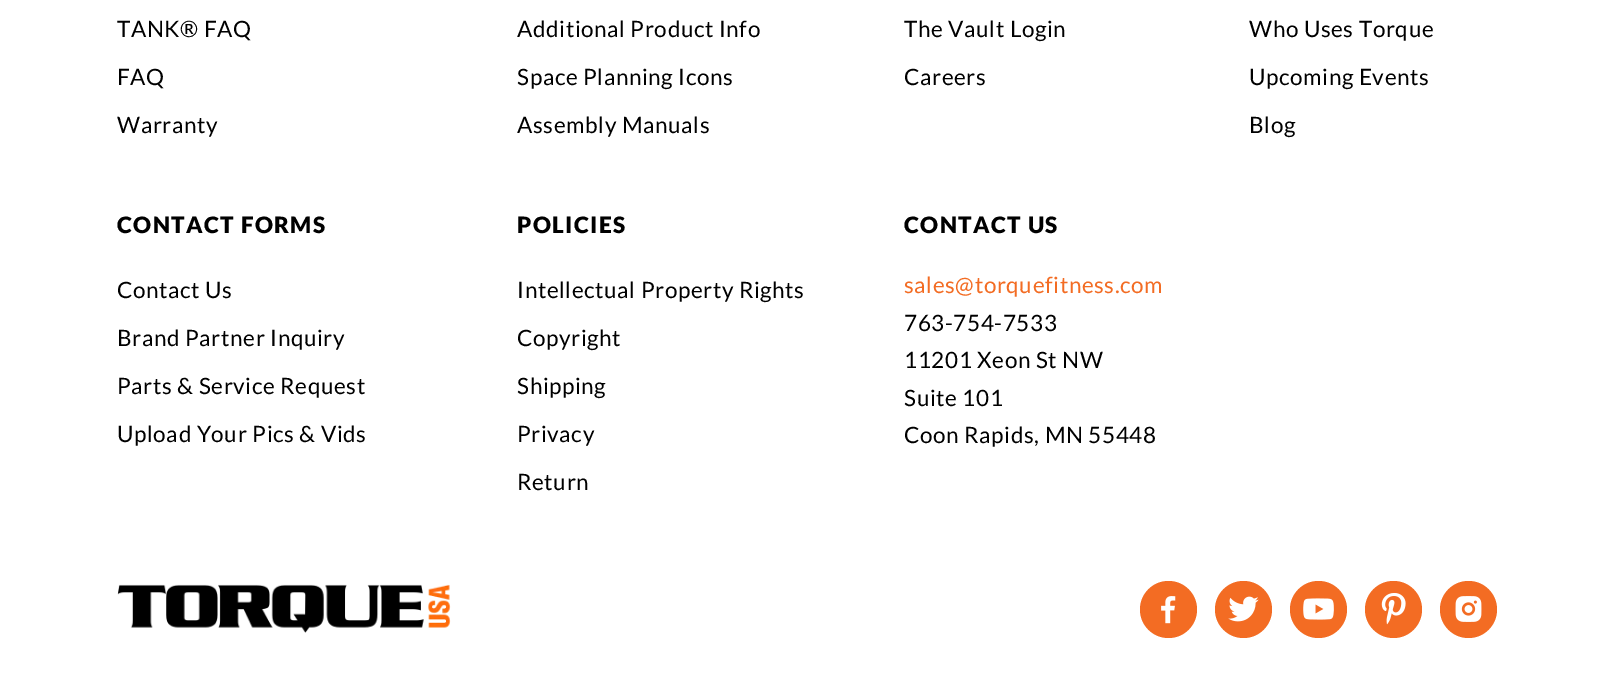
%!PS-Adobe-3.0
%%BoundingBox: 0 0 1613 693
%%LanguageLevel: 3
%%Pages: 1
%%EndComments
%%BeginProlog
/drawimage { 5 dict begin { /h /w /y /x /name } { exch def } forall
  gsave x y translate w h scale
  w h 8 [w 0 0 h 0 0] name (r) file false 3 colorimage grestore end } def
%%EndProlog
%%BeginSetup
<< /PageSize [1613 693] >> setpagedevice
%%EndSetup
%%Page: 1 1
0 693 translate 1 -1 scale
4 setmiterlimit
1 setgray
0 0 1613 693 rectfill
(images/1.raw) 117 584 334 49 drawimage
0.953 0.424 0.137 setrgbcolor
newpath 1168.5 609.5 28.5 0 360 arc closepath fill
(images/2.raw) 1161 596 15 28 drawimage
newpath 1243.5 609.5 28.5 0 360 arc closepath fill
(images/3.raw) 1228 596 31 26 drawimage
newpath 1318.5 609.5 28.5 0 360 arc closepath fill
(images/4.raw) 1303 598 31 22 drawimage
newpath 1393.5 609.5 28.5 0 360 arc closepath fill
(images/5.raw) 1381 593 25 32 drawimage
newpath 1468.5 609.5 28.5 0 360 arc closepath fill
(images/6.raw) 1455 596 27 26 drawimage
/Lato-Regular [22.5 0 0 -22.5 0 0] selectfont
0 setgray
117 37 moveto 0.6 0 (TANK® FAQ) ashow
117 85 moveto 0.6 0 (FAQ) ashow
117 133 moveto 0.6 0 (Warranty) ashow
517 37 moveto 0.6 0 (Additional Product Info) ashow
517 85 moveto 0.6 0 (Space Planning Icons) ashow
517 133 moveto 0.6 0 (Assembly Manuals) ashow
904 37 moveto 0.6 0 (The Vault Login) ashow
904 85 moveto 0.6 0 (Careers) ashow
1249 37 moveto 0.6 0 (Who Uses Torque) ashow
1249 85 moveto 0.6 0 (Upcoming Events) ashow
1249 133 moveto 0.6 0 (Blog) ashow
/Lato-Black [22.5 0 0 -22.5 0 0] selectfont
117 233 moveto 1.4 0 (CONTACT FORMS) ashow
/Lato-Regular [22.5 0 0 -22.5 0 0] selectfont
117 298 moveto 0.6 0 (Contact Us) ashow
117 346 moveto 0.6 0 (Brand Partner Inquiry) ashow
117 394 moveto 0.6 0 (Parts & Service Request) ashow
117 442 moveto 0.6 0 (Upload Your Pics & Vids) ashow
/Lato-Black [22.5 0 0 -22.5 0 0] selectfont
517 233 moveto 1.4 0 (POLICIES) ashow
/Lato-Regular [22.5 0 0 -22.5 0 0] selectfont
517 298 moveto 0.6 0 (Intellectual Property Rights) ashow
517 346 moveto 0.6 0 (Copyright) ashow
517 394 moveto 0.6 0 (Shipping) ashow
517 442 moveto 0.6 0 (Privacy) ashow
517 490 moveto 0.6 0 (Return) ashow
/Lato-Black [22.5 0 0 -22.5 0 0] selectfont
904 233 moveto 1.4 0 (CONTACT US) ashow
/Lato-Regular [22.5 0 0 -22.5 0 0] selectfont
0.953 0.424 0.137 setrgbcolor
904 293 moveto 0.6 0 (sales@torquefitness.com) ashow
0 setgray
904 331 moveto 0.6 0 (763-754-7533) ashow
904 368 moveto 0.6 0 (11201 Xeon St NW) ashow
904 406 moveto 0.6 0 (Suite 101) ashow
904 443 moveto 0.6 0 (Coon Rapids, MN 55448) ashow
showpage
%%EOF
